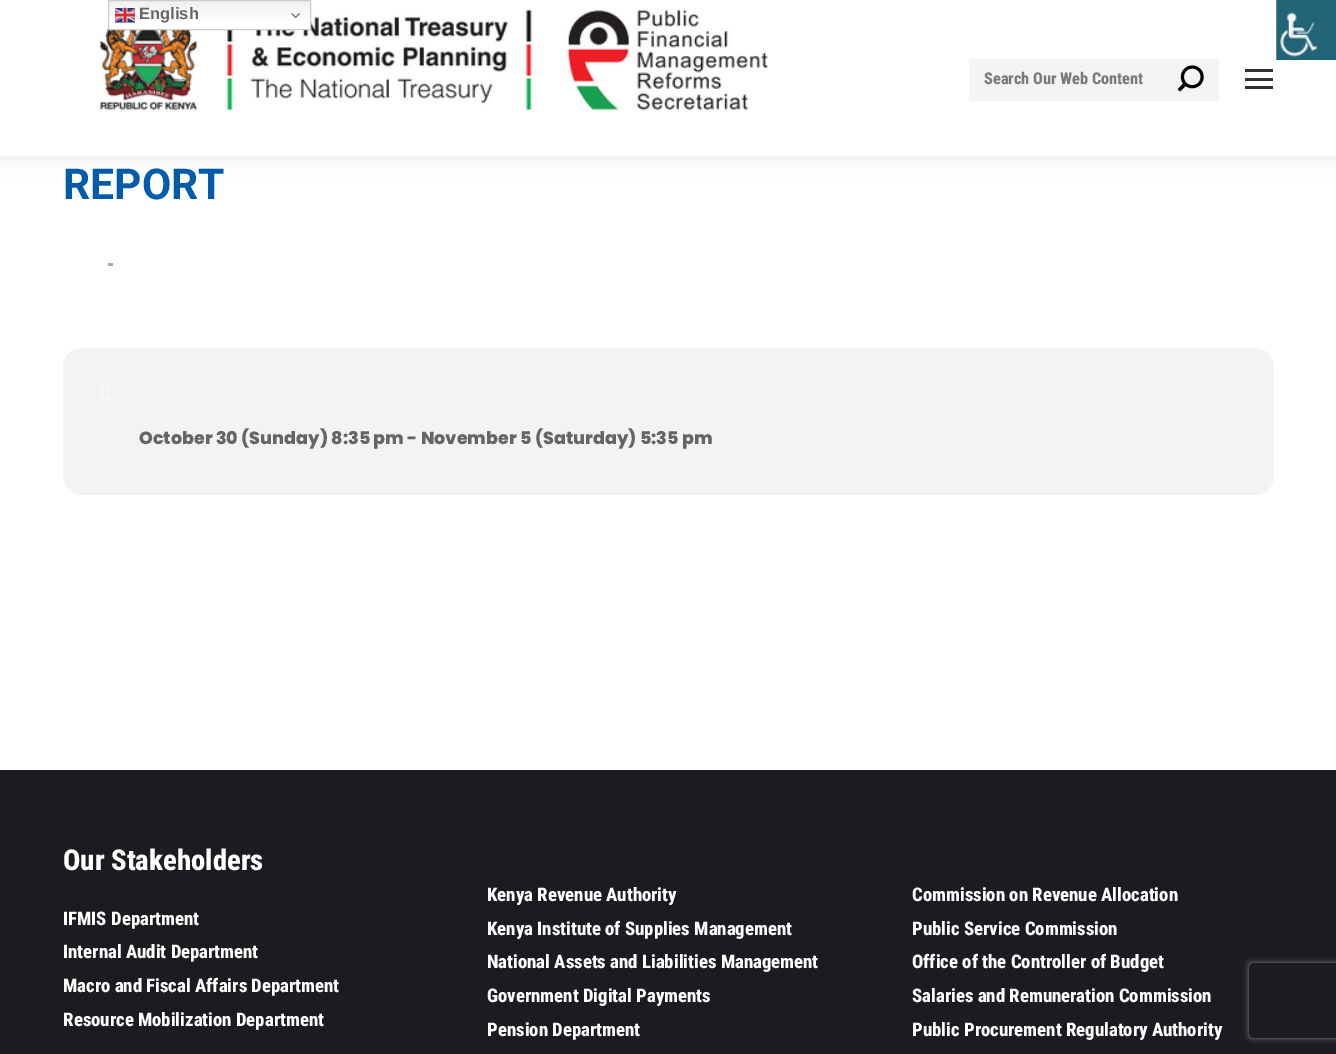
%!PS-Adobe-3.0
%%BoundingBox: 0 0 1336 1054
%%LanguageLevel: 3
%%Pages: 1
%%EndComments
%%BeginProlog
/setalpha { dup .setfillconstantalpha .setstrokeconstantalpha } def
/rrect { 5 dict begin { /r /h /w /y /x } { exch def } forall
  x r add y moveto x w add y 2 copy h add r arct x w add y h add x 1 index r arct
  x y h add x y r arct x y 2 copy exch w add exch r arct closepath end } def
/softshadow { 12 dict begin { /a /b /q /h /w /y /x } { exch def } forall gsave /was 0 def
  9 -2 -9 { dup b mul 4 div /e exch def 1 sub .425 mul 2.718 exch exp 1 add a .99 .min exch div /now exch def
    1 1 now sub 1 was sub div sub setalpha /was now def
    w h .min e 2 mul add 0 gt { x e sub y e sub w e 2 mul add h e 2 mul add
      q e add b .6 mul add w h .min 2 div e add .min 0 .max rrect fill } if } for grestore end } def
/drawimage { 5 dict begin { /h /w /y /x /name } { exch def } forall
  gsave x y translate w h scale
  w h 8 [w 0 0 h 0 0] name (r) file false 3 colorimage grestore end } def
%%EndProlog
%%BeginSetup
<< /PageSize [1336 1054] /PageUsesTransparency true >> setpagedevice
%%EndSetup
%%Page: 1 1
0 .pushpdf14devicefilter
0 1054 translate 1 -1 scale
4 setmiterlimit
1 setgray
0 0 1336 1054 rectfill
0 setgray
-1 -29 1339 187 0 9.5 0.07 softshadow
1 setgray
0 0 1336 156 rectfill
(images/4.raw) 98 8 670 104 drawimage
gsave newpath 109 1 moveto 310 1 lineto 310 29 lineto 109 29 lineto closepath clip newpath
<< /ShadingType 2 /ColorSpace /DeviceRGB /Coords [209 0 209 30] /Extend [true true] /Function << /FunctionType 3 /Domain [0 1] /Functions [<< /FunctionType 2 /Domain [0 1] /C0 [0.937 0.937 0.937] /C1 [1 1 1] /N 1 >> << /FunctionType 2 /Domain [0 1] /C0 [1 1 1] /C1 [1 1 1] /N 1 >>] /Bounds [0.7] /Encode [0 1 0 1] >> >> shfill grestore
0.8 setgray
108.5 0.5 202 29 rectstroke
(images/1.raw) 115 7 20 16 drawimage
(images/2.raw) 291 13 9 6 drawimage
(images/3.raw) 1276 0 60 60 drawimage
0.957 setgray
969 59 250 42 rectfill
(images/5.raw) 1177 65 27 27 drawimage
0.2 setgray
1245 69 28 3 rectfill
1245 78 28 3 rectfill
1245 86 28 3 rectfill
0.671 setgray
108 263 5 3 rectfill
0.953 setgray
63 348 1211 147 19 rrect fill
(images/6.raw) 101 387 8 13 drawimage
0.102 0.11 0.125 setrgbcolor
0 770 1336 284 rectfill
gsave
newpath 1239 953 moveto 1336 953 lineto 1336 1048 lineto 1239 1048 lineto closepath 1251.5 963 moveto 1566.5 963 lineto 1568 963 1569 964 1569 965.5 curveto 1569 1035.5 lineto 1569 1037 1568 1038 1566.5 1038 curveto 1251.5 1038 lineto 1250 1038 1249 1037 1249 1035.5 curveto 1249 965.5 lineto 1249 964 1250 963 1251.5 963 curveto closepath eoclip newpath
0.502 setgray
1249 963 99 75 2.5 3 1 softshadow
grestore
/LiberationSans-Bold [16.5 0 0 -16.5 0 0] selectfont
0.396 setgray
139 19 moveto (English) show
/RobotoCondensed-ExtraBold [16.25 0 0 -16.25 0 0] selectfont
0.478 setgray
984 84 moveto (Search Our Web Content) show
/Roboto-Bold [42.5 0 0 -42.5 0 0] selectfont
0 0.357 0.667 setrgbcolor
63 199 moveto (REPORT) show
/Poppins-ExtraBold [17.5 0 0 -17.5 0 0] selectfont
0.396 setgray
139 444 moveto (October 30 \(Sunday\) 8:35 pm - November 5 \(Saturday\) 5:35 pm) show
/RobotoCondensed-ExtraBold [28.75 0 0 -28.75 0 0] selectfont
1 setgray
63 870 moveto (Our Stakeholders) show
/RobotoCondensed-ExtraBold [18.75 0 0 -18.75 0 0] selectfont
63 925 moveto (IFMIS Department) show
63 958 moveto (Internal Audit Department) show
63 992 moveto (Macro and Fiscal Affairs Department) show
63 1026 moveto (Resource Mobilization Department) show
487 901 moveto (Kenya Revenue Authority) show
487 935 moveto (Kenya Institute of Supplies Management) show
487 968 moveto (National Assets and Liabilities Management) show
487 1002 moveto (Government Digital Payments) show
487 1036 moveto (Pension Department) show
912 901 moveto (Commission on Revenue Allocation) show
912 935 moveto (Public Service Commission) show
912 968 moveto (Office of the Controller of Budget) show
912 1002 moveto (Salaries and Remuneration Commission) show
912 1036 moveto (Public Procurement Regulatory Authority) show
.poppdf14devicefilter showpage
%%EOF
